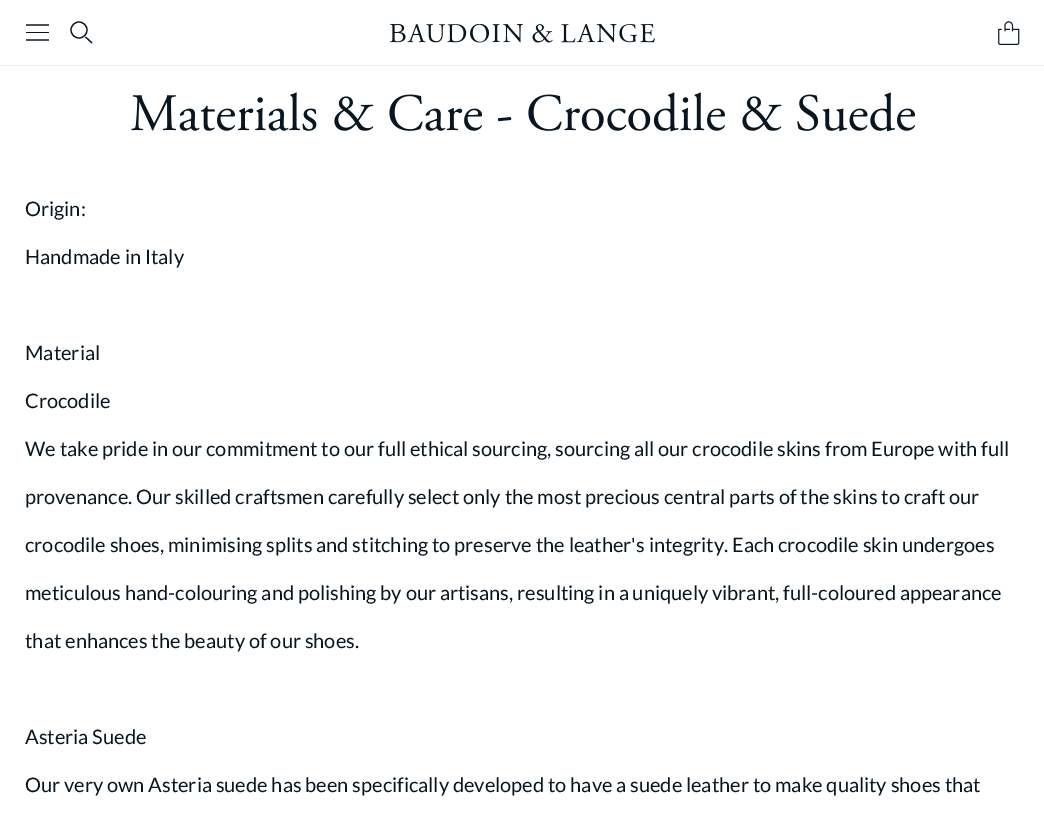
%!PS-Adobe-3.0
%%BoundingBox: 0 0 1044 823
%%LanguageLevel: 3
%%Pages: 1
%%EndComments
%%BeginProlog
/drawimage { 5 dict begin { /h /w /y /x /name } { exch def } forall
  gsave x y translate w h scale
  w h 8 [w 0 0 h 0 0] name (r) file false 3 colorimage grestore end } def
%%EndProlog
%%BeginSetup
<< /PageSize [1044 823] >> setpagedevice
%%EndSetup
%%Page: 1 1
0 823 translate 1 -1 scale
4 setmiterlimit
1 setgray
0 0 1044 823 rectfill
0.941 0.941 0.937 setrgbcolor
0 65 1044 1 rectfill
0.027 0.086 0.129 setrgbcolor
1.2 setlinewidth
newpath 26 25 moveto 49 25 lineto stroke
26 32 23 1 rectfill
newpath 26 40 moveto 49 40 lineto stroke
newpath 79 30 8 0 360 arc closepath stroke
newpath 85.5 37 moveto 92 43 lineto stroke
(images/1.raw) 390 24 265 19 drawimage
(images/2.raw) 998 21 22 24 drawimage
(images/3.raw) 131 92 784 40 drawimage
/Lato-Regular [20 0 0 -20 0 0] selectfont
25 216 moveto (Origin:) show
25 264 moveto (Handmade in Italy) show
25 360 moveto (Material) show
25 408 moveto (Crocodile) show
25 456 moveto (We take pride in our commitment to our full ethical sourcing, sourcing all our crocodile skins from Europe with full) show
25 504 moveto (provenance. Our skilled craftsmen carefully select only the most precious central parts of the skins to craft our) show
25 552 moveto (crocodile shoes, minimising splits and stitching to preserve the leather's integrity. Each crocodile skin undergoes) show
25 600 moveto (meticulous hand-colouring and polishing by our artisans, resulting in a uniquely vibrant, full-coloured appearance) show
25 648 moveto (that enhances the beauty of our shoes.) show
25 744 moveto (Asteria Suede) show
25 792 moveto (Our very own Asteria suede has been specifically developed to have a suede leather to make quality shoes that) show
showpage
%%EOF
